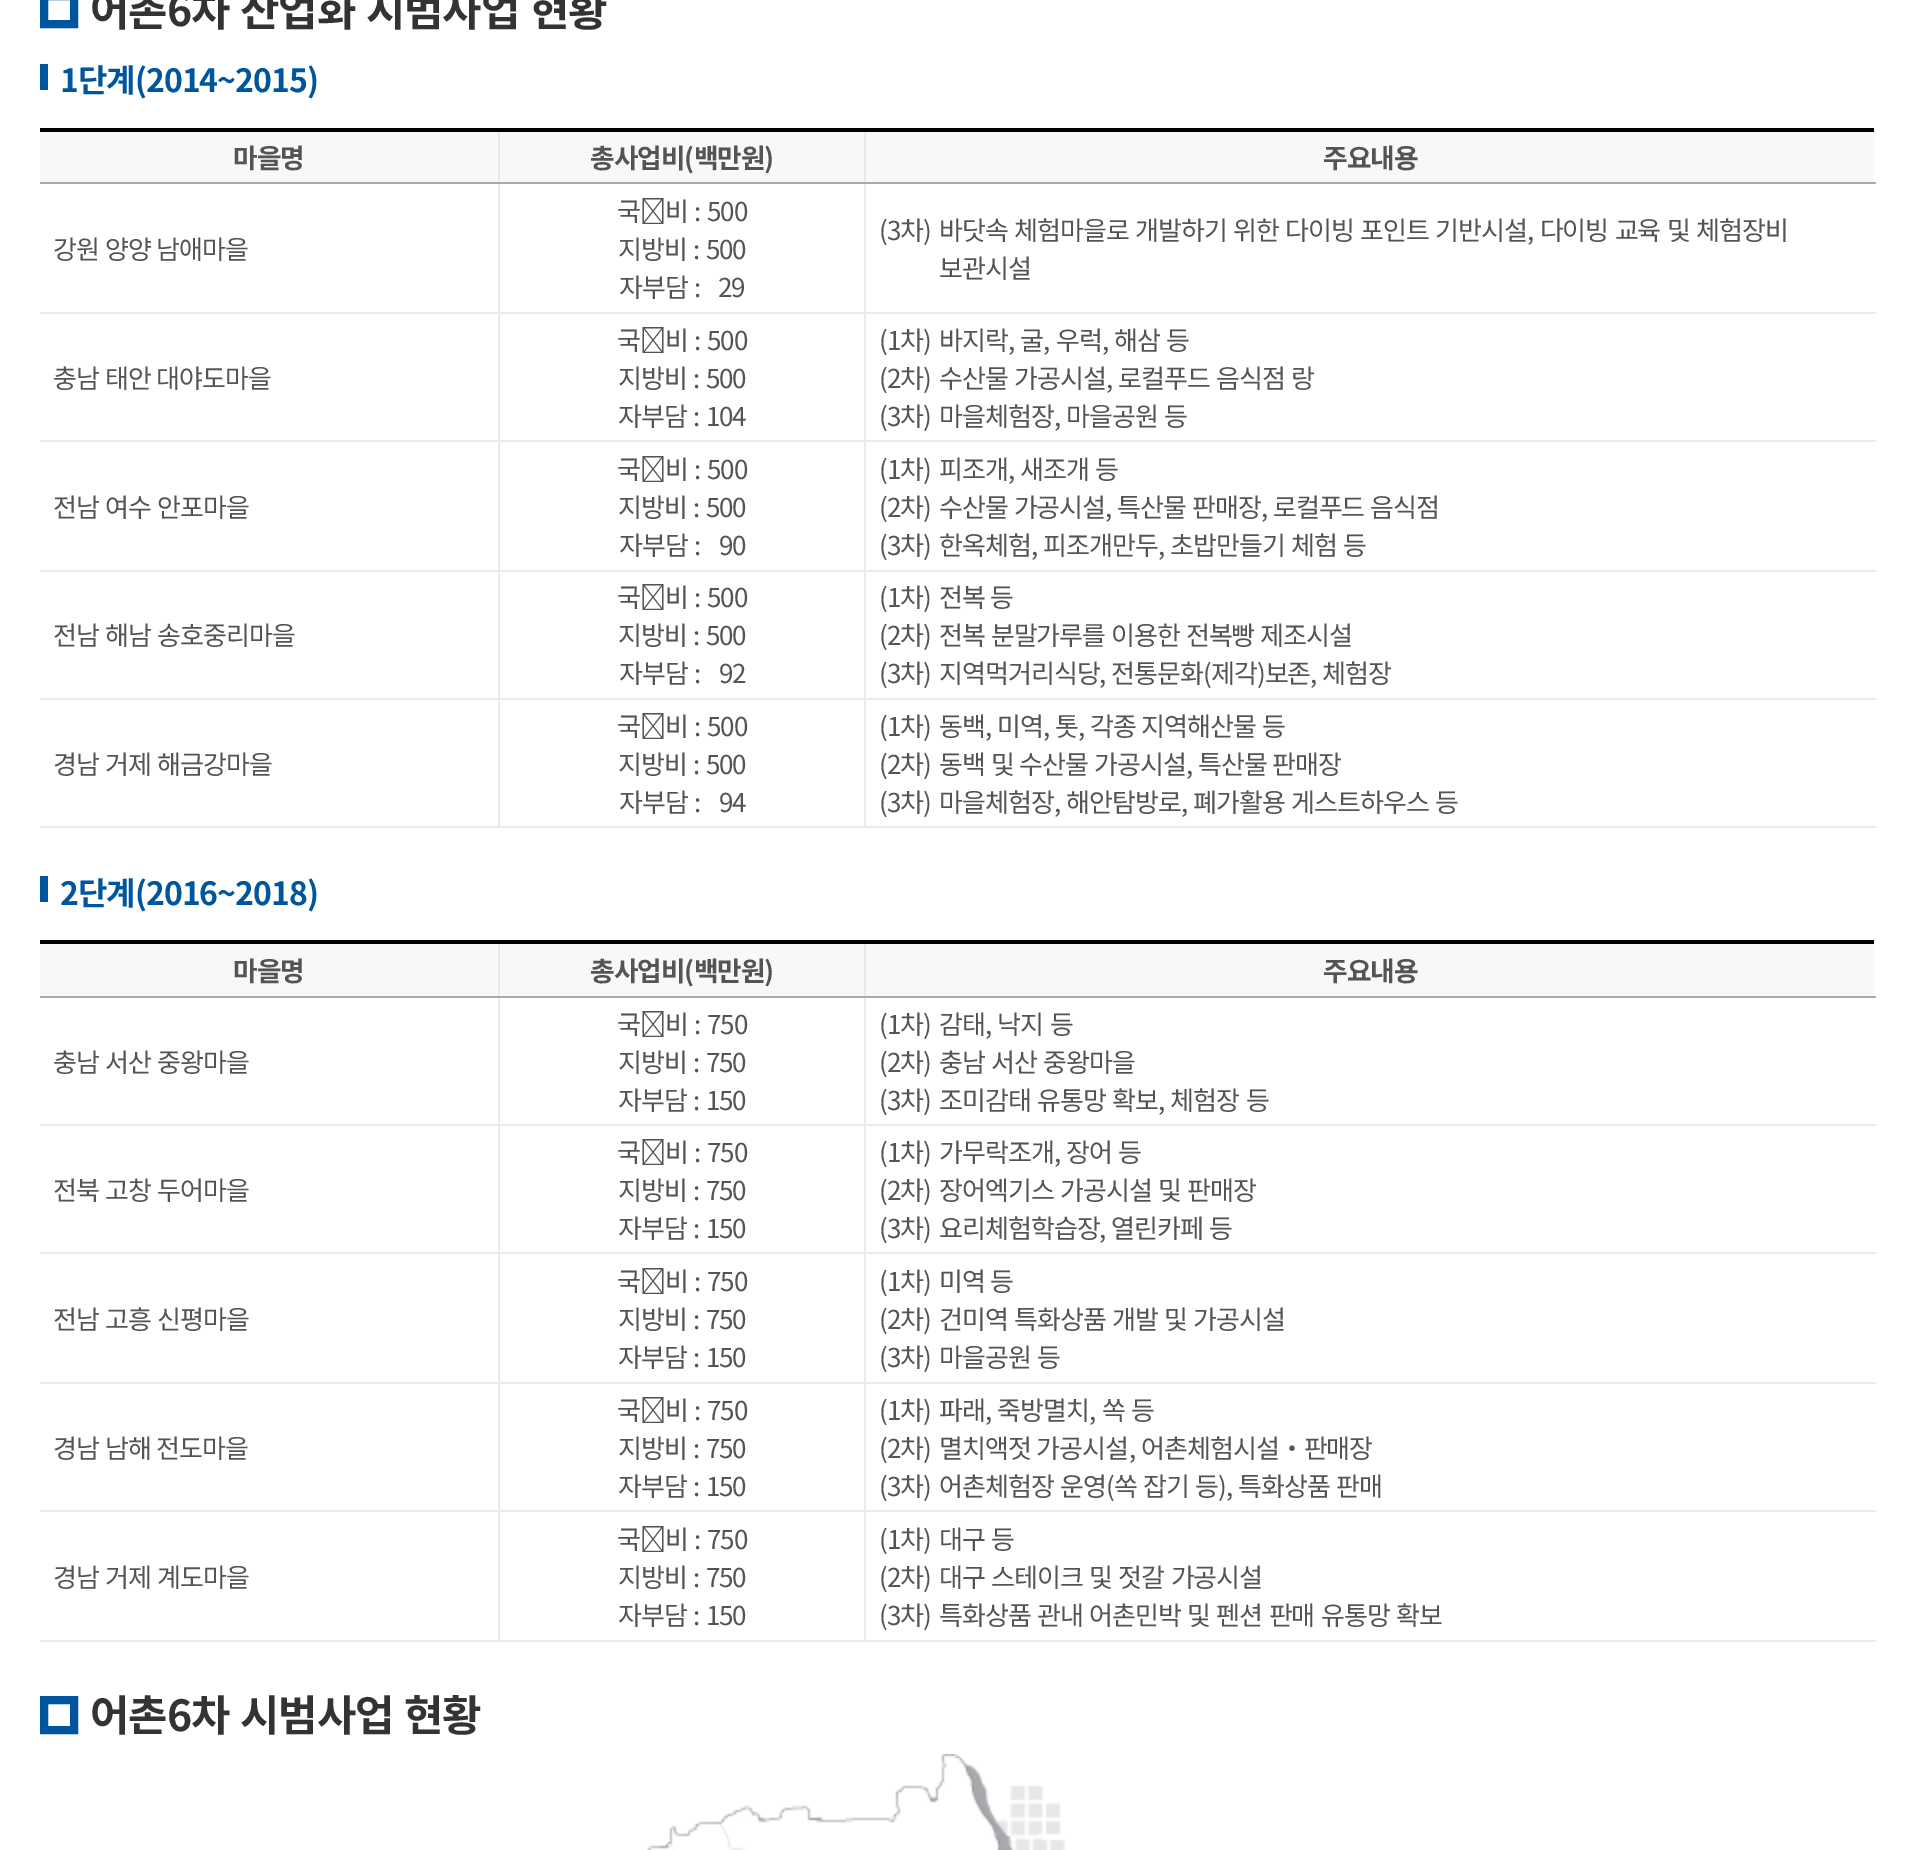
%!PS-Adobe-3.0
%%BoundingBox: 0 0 1914 1850
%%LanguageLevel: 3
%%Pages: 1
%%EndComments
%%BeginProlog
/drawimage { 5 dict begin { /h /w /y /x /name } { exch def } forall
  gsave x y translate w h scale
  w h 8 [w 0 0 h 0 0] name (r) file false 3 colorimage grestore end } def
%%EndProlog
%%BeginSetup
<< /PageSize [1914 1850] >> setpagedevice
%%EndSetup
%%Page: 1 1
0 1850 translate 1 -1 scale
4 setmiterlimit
1 setgray
0 0 1914 1850 rectfill
0 0.337 0.62 setrgbcolor
8 setlinewidth
44 -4 30 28 rectstroke
40 64 8 26 rectfill
0.918 setgray
864 826 1012 2 rectfill
0.925 setgray
864 698 2 130 rectfill
0.918 setgray
864 698 1012 2 rectfill
0.925 setgray
864 570 2 130 rectfill
0.918 setgray
864 570 1012 2 rectfill
0.925 setgray
864 440 2 132 rectfill
0.918 setgray
864 440 1012 2 rectfill
0.925 setgray
864 312 2 130 rectfill
0.918 setgray
864 312 1012 2 rectfill
0.925 setgray
864 182 2 132 rectfill
0.667 setgray
864 182 1012 2 rectfill
0.914 setgray
864 130 2 54 rectfill
0.918 setgray
498 826 368 2 rectfill
0.925 setgray
498 698 2 130 rectfill
0.918 setgray
498 698 368 2 rectfill
0.925 setgray
498 570 2 130 rectfill
0.918 setgray
498 570 368 2 rectfill
0.925 setgray
498 440 2 132 rectfill
0.918 setgray
498 440 368 2 rectfill
0.925 setgray
498 312 2 130 rectfill
0.918 setgray
498 312 368 2 rectfill
0.925 setgray
498 182 2 132 rectfill
0.667 setgray
498 182 368 2 rectfill
0.914 setgray
498 130 2 54 rectfill
0 setgray
40 128 1834 4 rectfill
0.973 setgray
40 132 458 50 rectfill
0.667 setgray
40 182 460 2 rectfill
0.973 setgray
500 132 364 50 rectfill
866 132 1008 50 rectfill
0.918 setgray
40 312 460 2 rectfill
40 440 460 2 rectfill
40 570 460 2 rectfill
40 698 460 2 rectfill
40 826 460 2 rectfill
0 0.337 0.62 setrgbcolor
40 876 8 26 rectfill
0.918 setgray
864 1640 1012 2 rectfill
0.925 setgray
864 1510 2 132 rectfill
0.918 setgray
864 1510 1012 2 rectfill
0.925 setgray
864 1382 2 130 rectfill
0.918 setgray
864 1382 1012 2 rectfill
0.925 setgray
864 1252 2 132 rectfill
0.918 setgray
864 1252 1012 2 rectfill
0.925 setgray
864 1124 2 130 rectfill
0.918 setgray
864 1124 1012 2 rectfill
0.925 setgray
864 996 2 130 rectfill
0.667 setgray
864 996 1012 2 rectfill
0.914 setgray
864 942 2 56 rectfill
0.918 setgray
498 1640 368 2 rectfill
0.925 setgray
498 1510 2 132 rectfill
0.918 setgray
498 1510 368 2 rectfill
0.925 setgray
498 1382 2 130 rectfill
0.918 setgray
498 1382 368 2 rectfill
0.925 setgray
498 1252 2 132 rectfill
0.918 setgray
498 1252 368 2 rectfill
0.925 setgray
498 1124 2 130 rectfill
0.918 setgray
498 1124 368 2 rectfill
0.925 setgray
498 996 2 130 rectfill
0.667 setgray
498 996 368 2 rectfill
0.914 setgray
498 942 2 56 rectfill
0 setgray
40 940 1834 4 rectfill
0.973 setgray
40 944 458 52 rectfill
0.667 setgray
40 996 460 2 rectfill
0.973 setgray
500 944 364 52 rectfill
866 944 1008 52 rectfill
0.918 setgray
40 1124 460 2 rectfill
40 1252 460 2 rectfill
40 1382 460 2 rectfill
40 1510 460 2 rectfill
40 1640 460 2 rectfill
0 0.337 0.62 setrgbcolor
44 1700 30 30 rectstroke
(images/1.raw) 647 1754 419 96 drawimage
/NotoSansKR-Bold [42.75 0 0 -42.75 0 0] selectfont
0.2 setgray
90 26 moveto 2 0 32 -1 0 (어촌6차 산업화 시범사업 현황) awidthshow
/NotoSansKR-Bold [32 0 0 -32 0 0] selectfont
0 0.337 0.62 setrgbcolor
60 92 moveto -1 0 (1단계\(2014~2015\)) ashow
/NotoSansKR-Bold [26.75 0 0 -26.75 0 0] selectfont
0.329 setgray
233 168 moveto -1 0 (마을명) ashow
590 168 moveto -1 0 (총사업비\(백만원\)) ashow
1323 168 moveto -1 0 (주요내용) ashow
/NotoSansKR-Regular [26 0 0 -26 0 0] selectfont
53 259 moveto 1 0 32 -1 0 (강원 양양 남애마을) awidthshow
617 221 moveto 1.5 0 32 -1 0 (국 비 : 500) awidthshow
618 259 moveto 1.5 0 32 -1 0 (지방비 : 500) awidthshow
619 297 moveto -1 0 (자부담) ashow
694 297 moveto 1 0 32 -1 0 (:  29) awidthshow
879 240 moveto -1 0 (\(3차\)) ashow
939 240 moveto 1.5 0 32 -1 0 (바닷속 체험마을로 개발하기 위한 다이빙 포인트 기반시설, 다이빙 교육 및 체험장비) awidthshow
939 278 moveto -1 0 (보관시설) ashow
53 388 moveto 1 0 32 -1 0 (충남 태안 대야도마을) awidthshow
617 350 moveto 1.5 0 32 -1 0 (국 비 : 500) awidthshow
618 388 moveto 1.5 0 32 -1 0 (지방비 : 500) awidthshow
618 426 moveto 1.5 0 32 -1 0 (자부담 : 104) awidthshow
879 350 moveto -1 0 (\(1차\)) ashow
939 350 moveto 1.5 0 32 -1 0 (바지락, 굴, 우럭, 해삼 등) awidthshow
879 388 moveto -1 0 (\(2차\)) ashow
939 388 moveto 1.5 0 32 -1 0 (수산물 가공시설, 로컬푸드 음식점 랑) awidthshow
879 426 moveto -1 0 (\(3차\)) ashow
939 426 moveto 1.5 0 32 -1 0 (마을체험장, 마을공원 등) awidthshow
53 517 moveto 1.5 0 32 -1 0 (전남 여수 안포마을) awidthshow
617 479 moveto 1.5 0 32 -1 0 (국 비 : 500) awidthshow
618 517 moveto 1.5 0 32 -1 0 (지방비 : 500) awidthshow
619 555 moveto 1.5 0 32 -1 0 (자부담 :  90) awidthshow
879 479 moveto -1 0 (\(1차\)) ashow
939 479 moveto 1.5 0 32 -1 0 (피조개, 새조개 등) awidthshow
879 517 moveto -1 0 (\(2차\)) ashow
939 517 moveto 1 0 32 -1 0 (수산물 가공시설, 특산물 판매장, 로컬푸드 음식점) awidthshow
879 555 moveto -1 0 (\(3차\)) ashow
939 555 moveto 1.5 0 32 -1 0 (한옥체험, 피조개만두, 초밥만들기 체험 등) awidthshow
53 645 moveto 1.5 0 32 -1 0 (전남 해남 송호중리마을) awidthshow
617 607 moveto 1.5 0 32 -1 0 (국 비 : 500) awidthshow
618 645 moveto 1.5 0 32 -1 0 (지방비 : 500) awidthshow
619 683 moveto 1.5 0 32 -1 0 (자부담 :  92) awidthshow
879 607 moveto -1 0 (\(1차\)) ashow
939 607 moveto -1 0 (전복 등) ashow
879 645 moveto -1 0 (\(2차\)) ashow
939 645 moveto 1 0 32 -1 0 (전복 분말가루를 이용한 전복빵 제조시설) awidthshow
879 683 moveto -1 0 (\(3차\)) ashow
939 683 moveto 1 0 32 -1 0 (지역먹거리식당, 전통문화\(제각\)보존, 체험장) awidthshow
53 774 moveto 1.5 0 32 -1 0 (경남 거제 해금강마을) awidthshow
617 736 moveto 1.5 0 32 -1 0 (국 비 : 500) awidthshow
618 774 moveto 1.5 0 32 -1 0 (지방비 : 500) awidthshow
619 812 moveto 1.5 0 32 -1 0 (자부담 :  94) awidthshow
879 736 moveto -1 0 (\(1차\)) ashow
939 736 moveto 1 0 32 -1 0 (동백, 미역, 톳, 각종 지역해산물 등) awidthshow
879 774 moveto -1 0 (\(2차\)) ashow
939 774 moveto 1 0 32 -1 0 (동백 및 수산물 가공시설, 특산물 판매장) awidthshow
879 812 moveto -1 0 (\(3차\)) ashow
939 812 moveto 1.5 0 32 -1 0 (마을체험장, 해안탐방로, 폐가활용 게스트하우스 등) awidthshow
/NotoSansKR-Bold [32 0 0 -32 0 0] selectfont
0 0.337 0.62 setrgbcolor
60 905 moveto -1 0 (2단계\(2016~2018\)) ashow
/NotoSansKR-Bold [26.75 0 0 -26.75 0 0] selectfont
0.329 setgray
233 981 moveto -1 0 (마을명) ashow
590 981 moveto -1 0 (총사업비\(백만원\)) ashow
1323 981 moveto -1 0 (주요내용) ashow
/NotoSansKR-Regular [26 0 0 -26 0 0] selectfont
53 1072 moveto 1.5 0 32 -1 0 (충남 서산 중왕마을) awidthshow
617 1034 moveto 1.5 0 32 -1 0 (국 비 : 750) awidthshow
618 1072 moveto 1.5 0 32 -1 0 (지방비 : 750) awidthshow
618 1110 moveto 1.5 0 32 -1 0 (자부담 : 150) awidthshow
879 1034 moveto -1 0 (\(1차\)) ashow
939 1034 moveto 1.5 0 32 -1 0 (감태, 낙지 등) awidthshow
879 1072 moveto -1 0 (\(2차\)) ashow
939 1072 moveto 1.5 0 32 -1 0 (충남 서산 중왕마을) awidthshow
879 1110 moveto -1 0 (\(3차\)) ashow
939 1110 moveto 1.5 0 32 -1 0 (조미감태 유통망 확보, 체험장 등) awidthshow
53 1200 moveto 1.5 0 32 -1 0 (전북 고창 두어마을) awidthshow
617 1162 moveto 1.5 0 32 -1 0 (국 비 : 750) awidthshow
618 1200 moveto 1.5 0 32 -1 0 (지방비 : 750) awidthshow
618 1238 moveto 1.5 0 32 -1 0 (자부담 : 150) awidthshow
879 1162 moveto -1 0 (\(1차\)) ashow
939 1162 moveto 1.5 0 32 -1 0 (가무락조개, 장어 등) awidthshow
879 1200 moveto -1 0 (\(2차\)) ashow
939 1200 moveto 1.5 0 32 -1 0 (장어엑기스 가공시설 및 판매장) awidthshow
879 1238 moveto -1 0 (\(3차\)) ashow
939 1238 moveto 1 0 32 -1 0 (요리체험학습장, 열린카페 등) awidthshow
53 1329 moveto 1.5 0 32 -1 0 (전남 고흥 신평마을) awidthshow
617 1291 moveto 1.5 0 32 -1 0 (국 비 : 750) awidthshow
618 1329 moveto 1.5 0 32 -1 0 (지방비 : 750) awidthshow
618 1367 moveto 1.5 0 32 -1 0 (자부담 : 150) awidthshow
879 1291 moveto -1 0 (\(1차\)) ashow
939 1291 moveto -1 0 (미역 등) ashow
879 1329 moveto -1 0 (\(2차\)) ashow
939 1329 moveto 1.5 0 32 -1 0 (건미역 특화상품 개발 및 가공시설) awidthshow
879 1367 moveto -1 0 (\(3차\)) ashow
939 1367 moveto 1.5 0 32 -1 0 (마을공원 등) awidthshow
53 1458 moveto 1 0 32 -1 0 (경남 남해 전도마을) awidthshow
617 1420 moveto 1.5 0 32 -1 0 (국 비 : 750) awidthshow
618 1458 moveto 1.5 0 32 -1 0 (지방비 : 750) awidthshow
618 1496 moveto 1.5 0 32 -1 0 (자부담 : 150) awidthshow
879 1420 moveto -1 0 (\(1차\)) ashow
939 1420 moveto 1.5 0 32 -1 0 (파래, 죽방멸치, 쏙 등) awidthshow
879 1458 moveto -1 0 (\(2차\)) ashow
/NotoSansCJKKR-Regular [26 0 0 -26 0 0] selectfont
939 1458 moveto 1 0 32 -1 0 (멸치액젓 가공시설) awidthshow
/NotoSansKR-Regular [26 0 0 -26 0 0] selectfont
1129 1458 moveto -1 0 (,) ashow
/NotoSansCJKKR-Regular [26 0 0 -26 0 0] selectfont
1141 1458 moveto -1 0 (어촌체험시설‧판매장) ashow
/NotoSansKR-Regular [26 0 0 -26 0 0] selectfont
879 1496 moveto -1 0 (\(3차\)) ashow
939 1496 moveto 1.5 0 32 -1 0 (어촌체험장 운영\(쏙 잡기 등\), 특화상품 판매) awidthshow
53 1587 moveto 1.5 0 32 -1 0 (경남 거제 계도마을) awidthshow
617 1549 moveto 1.5 0 32 -1 0 (국 비 : 750) awidthshow
618 1587 moveto 1.5 0 32 -1 0 (지방비 : 750) awidthshow
618 1625 moveto 1.5 0 32 -1 0 (자부담 : 150) awidthshow
879 1549 moveto -1 0 (\(1차\)) ashow
939 1549 moveto 1.5 0 32 -1 0 (대구 등) awidthshow
879 1587 moveto -1 0 (\(2차\)) ashow
939 1587 moveto 1.5 0 32 -1 0 (대구 스테이크 및 젓갈 가공시설) awidthshow
879 1625 moveto -1 0 (\(3차\)) ashow
939 1625 moveto 1.5 0 32 -1 0 (특화상품 관내 어촌민박 및 펜션 판매 유통망 확보) awidthshow
/NotoSansKR-Bold [42.75 0 0 -42.75 0 0] selectfont
0.2 setgray
90 1731 moveto 2 0 32 -1 0 (어촌6차 시범사업 현황) awidthshow
showpage
%%EOF
